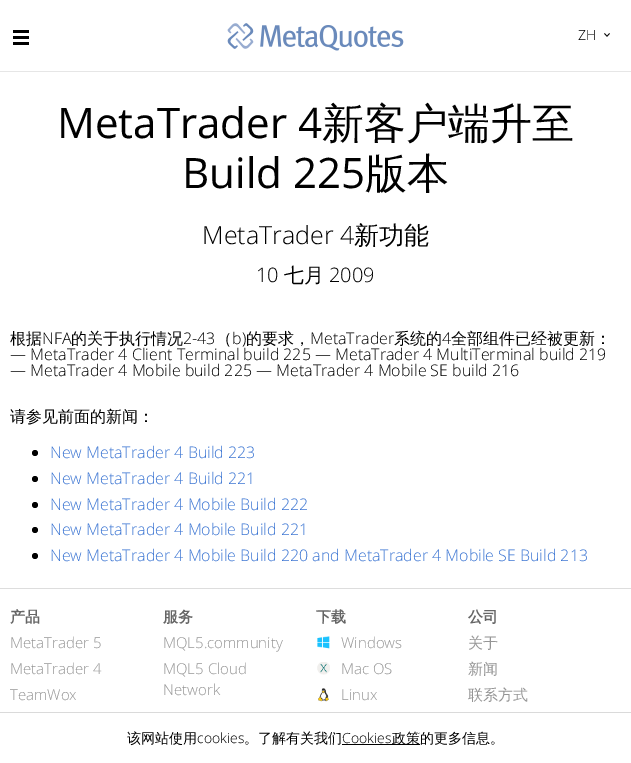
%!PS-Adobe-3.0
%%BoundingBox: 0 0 631 763
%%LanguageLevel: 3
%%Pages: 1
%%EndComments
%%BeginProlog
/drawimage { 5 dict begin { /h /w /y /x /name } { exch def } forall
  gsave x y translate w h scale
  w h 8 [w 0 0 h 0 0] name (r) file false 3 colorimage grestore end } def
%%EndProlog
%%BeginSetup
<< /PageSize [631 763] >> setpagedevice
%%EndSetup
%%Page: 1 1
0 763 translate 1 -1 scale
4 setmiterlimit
1 setgray
0 0 631 763 rectfill
0 setgray
13 30 16 3 rectfill
13 36 16 3 rectfill
13 42 16 3 rectfill
(images/1.raw) 227 23 177 28 drawimage
(images/2.raw) 604 33 6 4 drawimage
0.902 setgray
0 71 631 1 rectfill
0 setgray
newpath 35 453 3 0 360 arc closepath fill
newpath 35 479 3 0 360 arc closepath fill
newpath 35 505 3 0 360 arc closepath fill
newpath 35 530 3 0 360 arc closepath fill
newpath 35 556 3 0 360 arc closepath fill
0.867 setgray
0 588 631 1 rectfill
(images/3.raw) 317 636 13 13 drawimage
(images/4.raw) 317 662 13 13 drawimage
(images/5.raw) 318 688 11 14 drawimage
0.855 setgray
0 712 631 1 rectfill
0 setgray
342 744 78 1 rectfill
/OpenSans-Light [14 0 0 -14 0 0] selectfont
578 40 moveto (ZH) show
/OpenSans-Regular [42 0 0 -42 0 0] selectfont
57 138 moveto (MetaTrader 4) show
/WenQuanYiZenHei-Medium [42 0 0 -42 0 0] selectfont
322 138 moveto (新客户端升至) show
/OpenSans-Regular [42 0 0 -42 0 0] selectfont
182 188 moveto (Build 225) show
/WenQuanYiZenHei-Medium [42 0 0 -42 0 0] selectfont
365 188 moveto (版本) show
/OpenSans-Light [25 0 0 -25 0 0] selectfont
202 244 moveto (MetaTrader 4) show
/WenQuanYiZenHei-Medium [25 0 0 -25 0 0] selectfont
354 244 moveto (新功能) show
/OpenSans-Light [20 0 0 -20 0 0] selectfont
256 282 moveto (10) show
/WenQuanYiZenHei-Medium [20 0 0 -20 0 0] selectfont
284 282 moveto (七月) show
/OpenSans-Light [20 0 0 -20 0 0] selectfont
329 282 moveto (2009) show
/WenQuanYiZenHei-Medium [16 0 0 -16 0 0] selectfont
10 344 moveto (根据) show
/OpenSans-Light [16 0 0 -16 0 0] selectfont
42 344 moveto (NFA) show
/WenQuanYiZenHei-Medium [16 0 0 -16 0 0] selectfont
71 344 moveto (的关于执行情况) show
/OpenSans-Light [16 0 0 -16 0 0] selectfont
183 344 moveto (2-43) show
/WenQuanYiZenHei-Medium [16 0 0 -16 0 0] selectfont
216 344 moveto (（) show
/OpenSans-Light [16 0 0 -16 0 0] selectfont
232 344 moveto (b\)) show
/WenQuanYiZenHei-Medium [16 0 0 -16 0 0] selectfont
246 344 moveto (的要求，) show
/OpenSans-Light [16 0 0 -16 0 0] selectfont
310 344 moveto (MetaTrader) show
/WenQuanYiZenHei-Medium [16 0 0 -16 0 0] selectfont
394 344 moveto (系统的) show
/OpenSans-Light [16 0 0 -16 0 0] selectfont
442 344 moveto (4) show
/WenQuanYiZenHei-Medium [16 0 0 -16 0 0] selectfont
451 344 moveto (全部组件已经被更新：) show
/OpenSans-Light [16 0 0 -16 0 0] selectfont
10 360 moveto (— MetaTrader 4 Client Terminal build 225 — MetaTrader 4 MultiTerminal build 219) show
10 376 moveto (— MetaTrader 4 Mobile build 225 — MetaTrader 4 Mobile SE build 216) show
/WenQuanYiZenHei-Medium [16 0 0 -16 0 0] selectfont
10 422 moveto (请参见前面的新闻：) show
/OpenSans-Light [16 0 0 -16 0 0] selectfont
0.231 0.459 0.827 setrgbcolor
50 458 moveto (New MetaTrader 4 Build 223) show
50 484 moveto (New MetaTrader 4 Build 221) show
50 510 moveto (New MetaTrader 4 Mobile Build 222) show
50 535 moveto (New MetaTrader 4 Mobile Build 221) show
50 561 moveto (New MetaTrader 4 Mobile Build 220 and MetaTrader 4 Mobile SE Build 213) show
/WenQuanYiZenHei-Bold [15 0 0 -15 0 0] selectfont
0.4 setgray
10 622 moveto (产品) show
/OpenSans-Light [15 0 0 -15 0 0] selectfont
0.584 setgray
10 648 moveto (MetaTrader 5) show
10 674 moveto (MetaTrader 4) show
10 700 moveto (TeamWox) show
/WenQuanYiZenHei-Bold [15 0 0 -15 0 0] selectfont
0.4 setgray
163 622 moveto (服务) show
/OpenSans-Light [15 0 0 -15 0 0] selectfont
0.584 setgray
163 648 moveto (MQL5.community) show
163 674 moveto (MQL5 Cloud) show
163 695 moveto (Network) show
/WenQuanYiZenHei-Bold [15 0 0 -15 0 0] selectfont
0.4 setgray
316 622 moveto (下载) show
/OpenSans-Light [15 0 0 -15 0 0] selectfont
0.584 setgray
341 648 moveto (Windows) show
341 674 moveto (Mac OS) show
341 700 moveto (Linux) show
/WenQuanYiZenHei-Bold [15 0 0 -15 0 0] selectfont
0.4 setgray
468 622 moveto (公司) show
/WenQuanYiZenHei-Medium [15 0 0 -15 0 0] selectfont
0.584 setgray
468 648 moveto (关于) show
468 674 moveto (新闻) show
468 700 moveto (联系方式) show
/WenQuanYiZenHei-Medium [14 0 0 -14 0 0] selectfont
0 setgray
127 743 moveto (该网站使用) show
/OpenSans-Light [14 0 0 -14 0 0] selectfont
197 743 moveto (cookies) show
/WenQuanYiZenHei-Medium [14 0 0 -14 0 0] selectfont
244 743 moveto (。了解有关我们) show
/OpenSans-Light [14 0 0 -14 0 0] selectfont
342 743 moveto (Cookies) show
/WenQuanYiZenHei-Medium [14 0 0 -14 0 0] selectfont
392 743 moveto (政策的更多信息。) show
showpage
%%EOF
